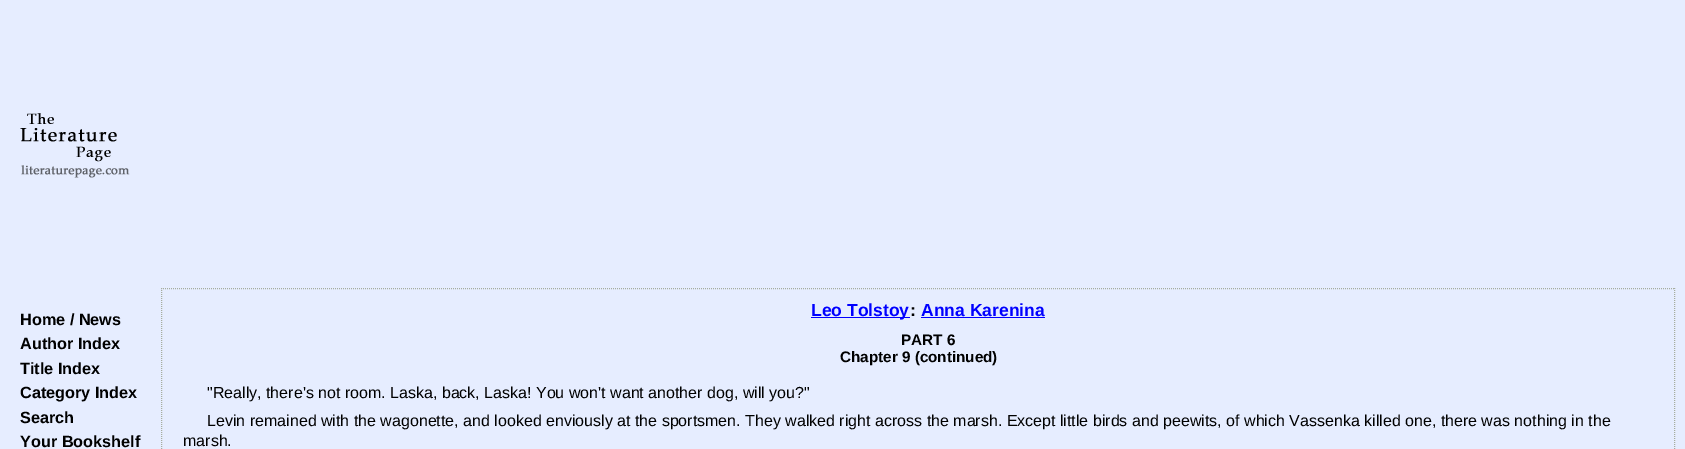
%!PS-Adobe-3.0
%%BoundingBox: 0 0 1685 449
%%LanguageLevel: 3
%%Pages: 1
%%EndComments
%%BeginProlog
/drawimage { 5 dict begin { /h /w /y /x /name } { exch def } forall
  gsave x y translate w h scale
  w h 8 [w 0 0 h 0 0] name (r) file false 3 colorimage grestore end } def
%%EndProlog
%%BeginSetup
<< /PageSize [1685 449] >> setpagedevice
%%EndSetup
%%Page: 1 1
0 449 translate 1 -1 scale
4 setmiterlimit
0.902 0.929 1 setrgbcolor
0 0 1685 449 rectfill
(images/1.raw) 20 113 110 65 drawimage
0.651 0.678 0.624 setrgbcolor
[1 1] 0 setdash
newpath 161 288.5 moveto 1675 288.5 lineto stroke
newpath 1674.5 288 moveto 1674.5 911 lineto stroke
newpath 161.5 288 moveto 161.5 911 lineto stroke
0 0 1 setrgbcolor
811 317 99 1 rectfill
921 317 124 1 rectfill
/LiberationSans-Bold [16.25 0 0 -16.25 0 0] selectfont
0 setgray
20 325 moveto (Home / News) show
20 349 moveto (Author Index) show
20 374 moveto (Title Index) show
20 398 moveto (Category Index) show
20 423 moveto (Search) show
20 447 moveto (Your Bookshelf) show
/LiberationSans-Bold [17.5 0 0 -17.5 0 0] selectfont
0 0 1 setrgbcolor
811 316 moveto (Leo Tolstoy) show
0 setgray
910 316 moveto (:) show
0 0 1 setrgbcolor
921 316 moveto (Anna Karenina) show
/LiberationSans-Bold [15.25 0 0 -15.25 0 0] selectfont
0 setgray
901 345 moveto (PART 6) show
840 362 moveto (Chapter 9 \(continued\)) show
/LiberationSans-Regular [16 0 0 -16 0 0] selectfont
207 398 moveto ("Really, there's not room. Laska, back, Laska! You won't want another dog, will you?") show
207 426 moveto (Levin remained with the wagonette, and looked enviously at the sportsmen. They walked right across the marsh. Except little birds and peewits, of which Vassenka killed one, there was nothing in the) show
183 446 moveto (marsh.) show
showpage
%%EOF
